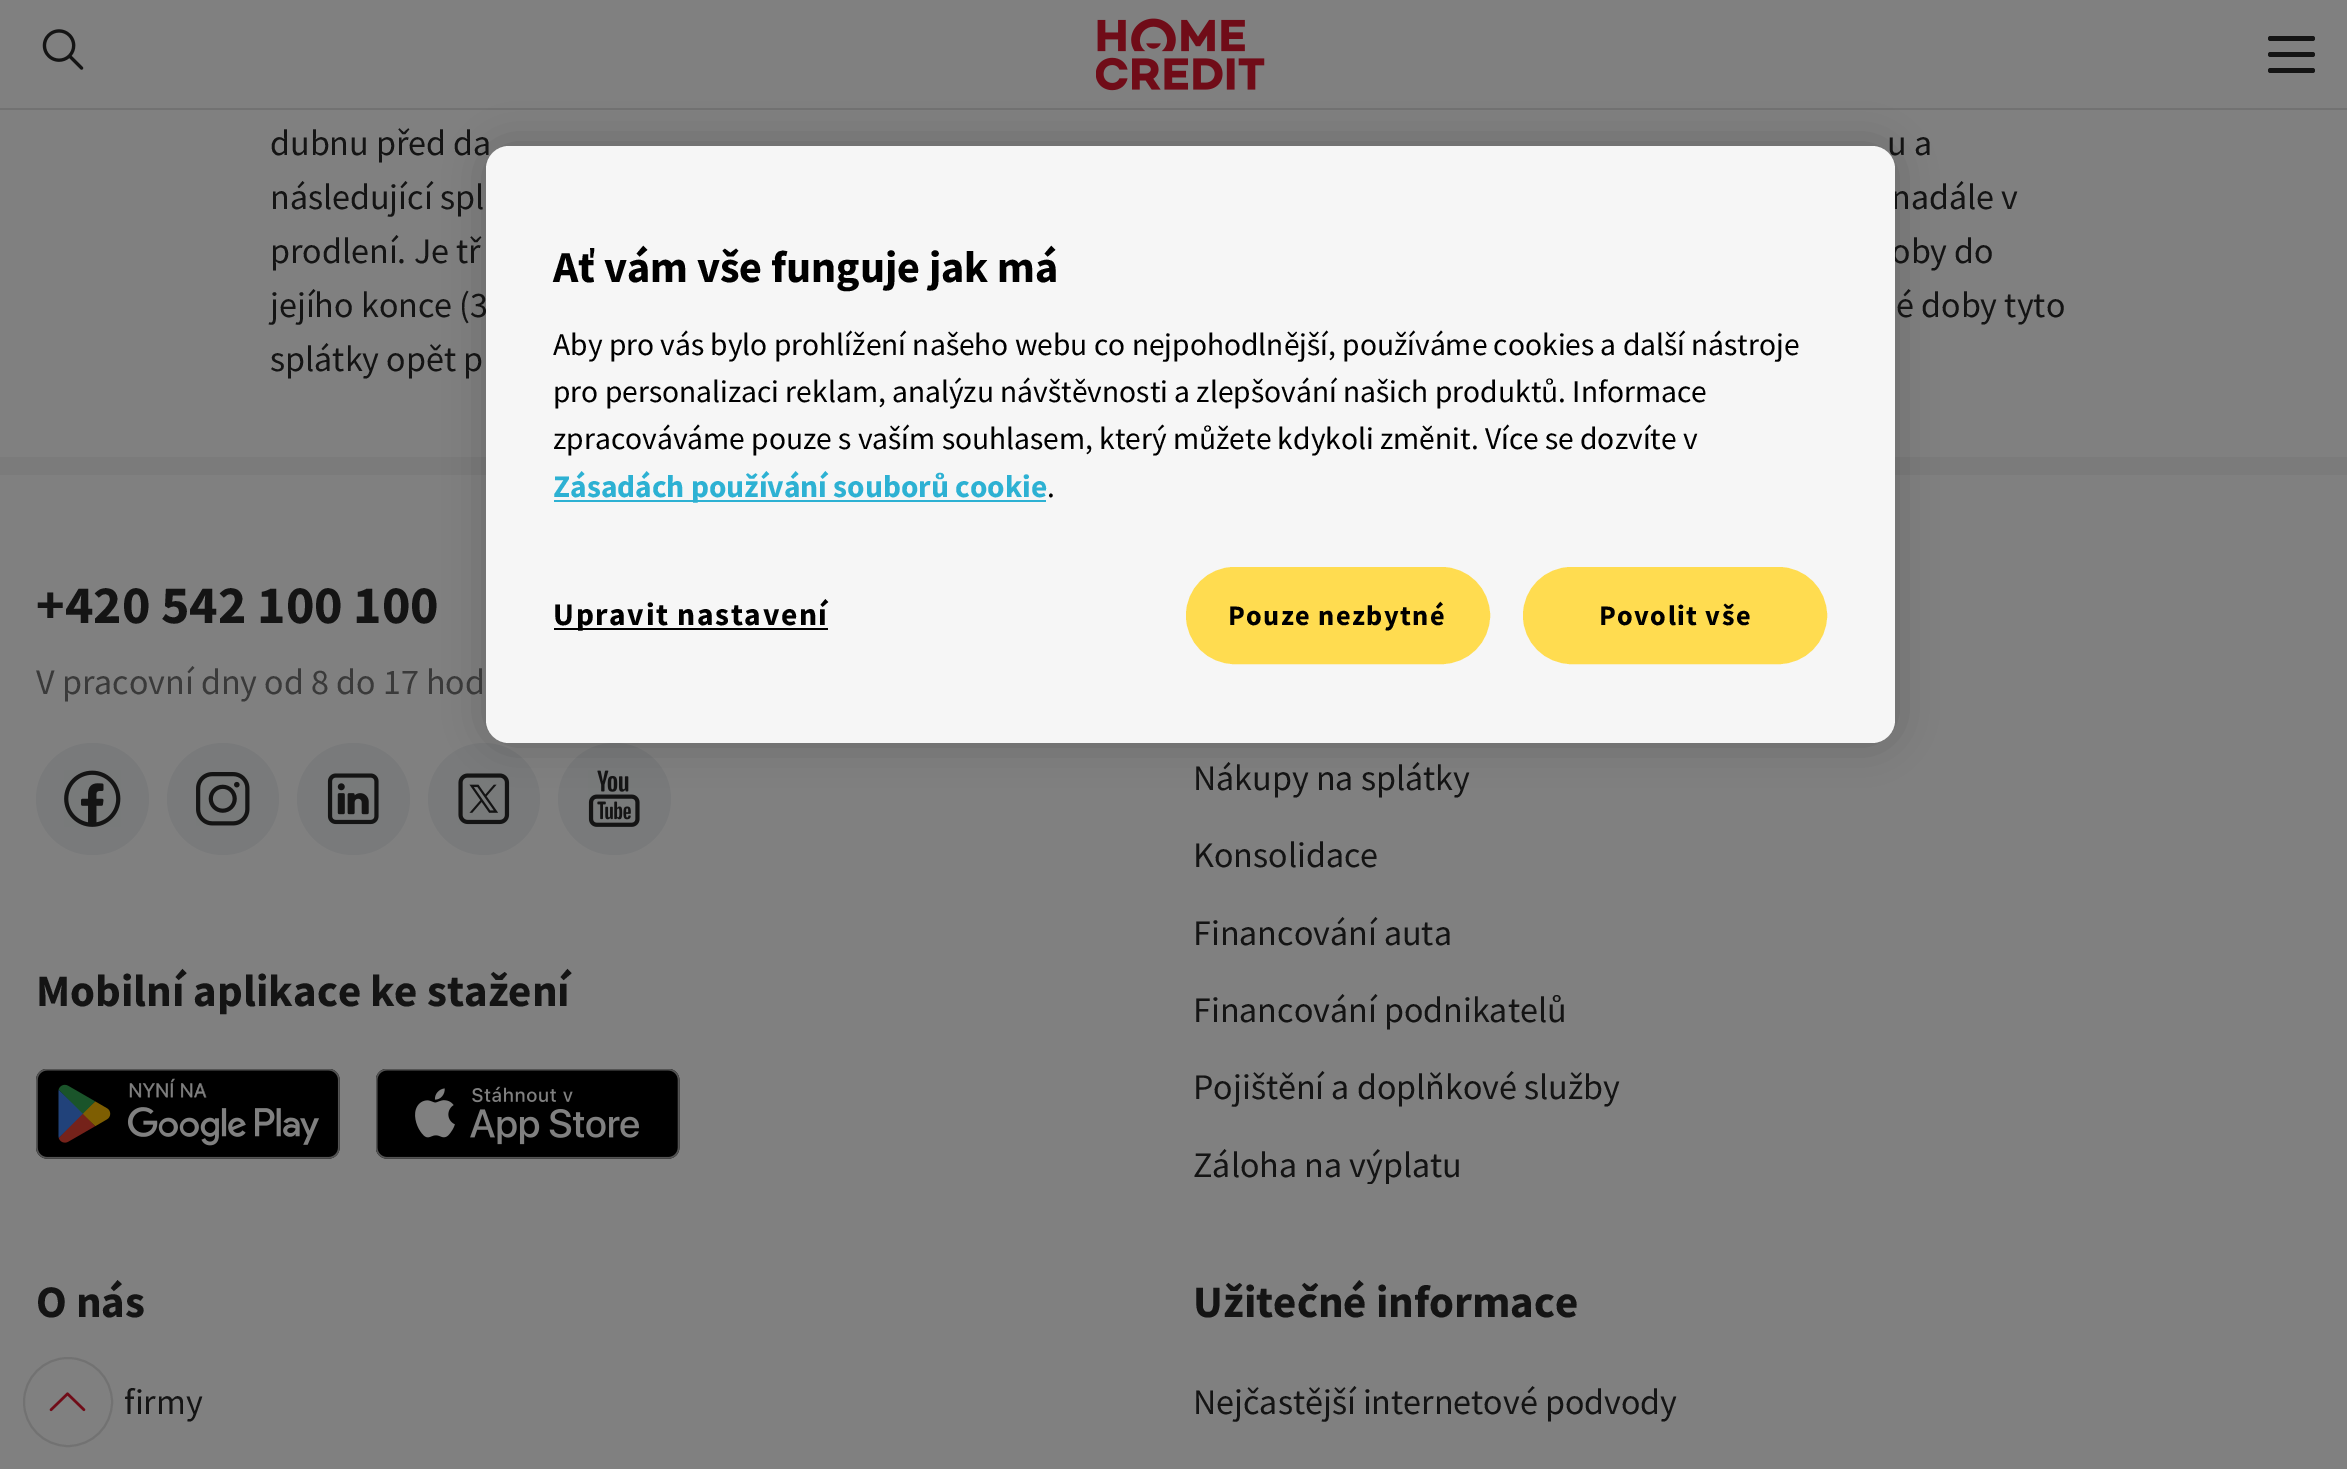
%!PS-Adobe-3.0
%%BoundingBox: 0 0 2347 1469
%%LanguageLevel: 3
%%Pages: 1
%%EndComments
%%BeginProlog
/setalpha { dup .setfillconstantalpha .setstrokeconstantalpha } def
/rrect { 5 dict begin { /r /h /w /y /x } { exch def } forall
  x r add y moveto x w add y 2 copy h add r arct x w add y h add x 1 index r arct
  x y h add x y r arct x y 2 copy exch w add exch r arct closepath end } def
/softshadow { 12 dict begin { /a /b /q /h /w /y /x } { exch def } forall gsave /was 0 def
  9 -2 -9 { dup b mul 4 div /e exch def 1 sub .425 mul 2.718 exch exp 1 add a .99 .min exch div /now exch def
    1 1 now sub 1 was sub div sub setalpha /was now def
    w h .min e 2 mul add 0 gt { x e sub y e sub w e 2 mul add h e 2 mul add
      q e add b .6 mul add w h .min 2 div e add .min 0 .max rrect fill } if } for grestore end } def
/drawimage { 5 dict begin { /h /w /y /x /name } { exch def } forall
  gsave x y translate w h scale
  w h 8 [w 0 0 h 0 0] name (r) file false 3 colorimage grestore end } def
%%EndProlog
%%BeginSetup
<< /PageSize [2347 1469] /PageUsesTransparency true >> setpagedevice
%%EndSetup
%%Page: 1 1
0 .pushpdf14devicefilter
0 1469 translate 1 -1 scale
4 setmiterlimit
0.502 setgray
0 0 2347 1469 rectfill
0.447 setgray
0 108 2347 2 rectfill
(images/1.raw) 42 29 42 41 drawimage
(images/2.raw) 1096 18 169 73 drawimage
0.078 setgray
2268 36 47 5 2.5 rrect fill
2268 52 47 5 2.5 rrect fill
2268 68 47 5 2.5 rrect fill
0.447 setgray
2 setlinewidth
newpath 68 1402 44 0 360 arc closepath stroke
(images/3.raw) 49 1392 37 20 drawimage
0.482 setgray
0 457 2347 18 rectfill
0.475 0.478 0.482 setrgbcolor
newpath 484 799 56 0 360 arc closepath fill
(images/7.raw) 458 773 52 52 drawimage
558 743 113 112 56 rrect fill
(images/8.raw) 588 770 52 57 drawimage
0 setgray
486 146 1409 597 23 20 0.2 softshadow
0.475 0.478 0.482 setrgbcolor
36 743 113 112 56 rrect fill
(images/4.raw) 64 770 57 57 drawimage
newpath 223 799 56 0 360 arc closepath fill
(images/5.raw) 196 772 54 54 drawimage
297 743 113 112 56 rrect fill
(images/6.raw) 327 773 52 52 drawimage
(images/9.raw) 36 1069 304 90 drawimage
(images/10.raw) 376 1069 304 90 drawimage
/SourceSansPro-Regular [36 0 0 -36 0 0] selectfont
0.078 setgray
270 155 moveto (dubnu před da) show
1887 155 moveto (u a) show
270 209 moveto (následující spl) show
1891 209 moveto (nadále v) show
270 263 moveto (prodlení. Je tř) show
1891 263 moveto (oby do) show
270 317 moveto (jejího konce \(3) show
1896 317 moveto (é doby tyto) show
270 371 moveto (splátky opět p) show
0.965 setgray
486 146 1409 597 23 rrect fill
/SourceSansPro-Bold [44.1 0 0 -44.1 0 0] selectfont
0 setgray
553 282 moveto (Ať vám vše funguje jak má) show
/SourceSansPro-Regular [31.5 0 0 -31.5 0 0] selectfont
553 355 moveto (Aby pro vás bylo prohlížení našeho webu co nejpohodlnější, používáme cookies a další nástroje) show
553 402 moveto (pro personalizaci reklam, analýzu návštěvnosti a zlepšování našich produktů. Informace) show
553 449 moveto (zpracováváme pouze s vaším souhlasem, který můžete kdykoli změnit. Více se dozvíte v) show
0.176 0.694 0.827 setrgbcolor
554 500 492 2 rectfill
/SourceSansPro-Bold [31.5 0 0 -31.5 0 0] selectfont
553 497 moveto (Zásadách používání souborů cookie) show
/SourceSansPro-Regular [31.5 0 0 -31.5 0 0] selectfont
0 setgray
1047 497 moveto (.) show
554 628 274 2 rectfill
/SourceSansPro-Bold [31.5 0 0 -31.5 0 0] selectfont
553 625 moveto 1.6 0 (Upravit nastavení) ashow
1 0.863 0.314 setrgbcolor
1187 568 302 95 47.5 rrect gsave fill grestore
stroke
/SourceSansPro-Bold [28.25 0 0 -28.25 0 0] selectfont
0 setgray
1228 625 moveto 1.4 0 (Pouze nezbytné) ashow
1 0.863 0.314 setrgbcolor
1524 568 302 95 47.5 rrect gsave fill grestore
stroke
0 setgray
1599 625 moveto 1.4 0 (Povolit vše) ashow
/SourceSansPro-Bold [54 0 0 -54 0 0] selectfont
0.078 setgray
36 623 moveto (+420 542 100 100) show
/SourceSansPro-Regular [36 0 0 -36 0 0] selectfont
0.227 setgray
36 694 moveto (V pracovní dny od 8 do 17 hod) show
/SourceSansPro-Bold [45 0 0 -45 0 0] selectfont
0.078 setgray
36 1006 moveto (Mobilní aplikace ke stažení) show
/SourceSansPro-Regular [36 0 0 -36 0 0] selectfont
1193 790 moveto (Nákupy na splátky) show
1193 867 moveto (Konsolidace) show
1193 945 moveto (Financování auta) show
1193 1022 moveto (Financování podnikatelů) show
1193 1099 moveto (Pojištění a doplňkové služby) show
gsave
1193 626 1120 558 rectclip
1193 1177 moveto (Záloha na výplatu) show
grestore
/SourceSansPro-Bold [45 0 0 -45 0 0] selectfont
36 1317 moveto (O nás) show
/SourceSansPro-Regular [36 0 0 -36 0 0] selectfont
124 1414 moveto (firmy) show
/SourceSansPro-Bold [45 0 0 -45 0 0] selectfont
1193 1317 moveto (Užitečné informace) show
/SourceSansPro-Regular [36 0 0 -36 0 0] selectfont
1193 1414 moveto (Nejčastější internetové podvody) show
.poppdf14devicefilter showpage
%%EOF
